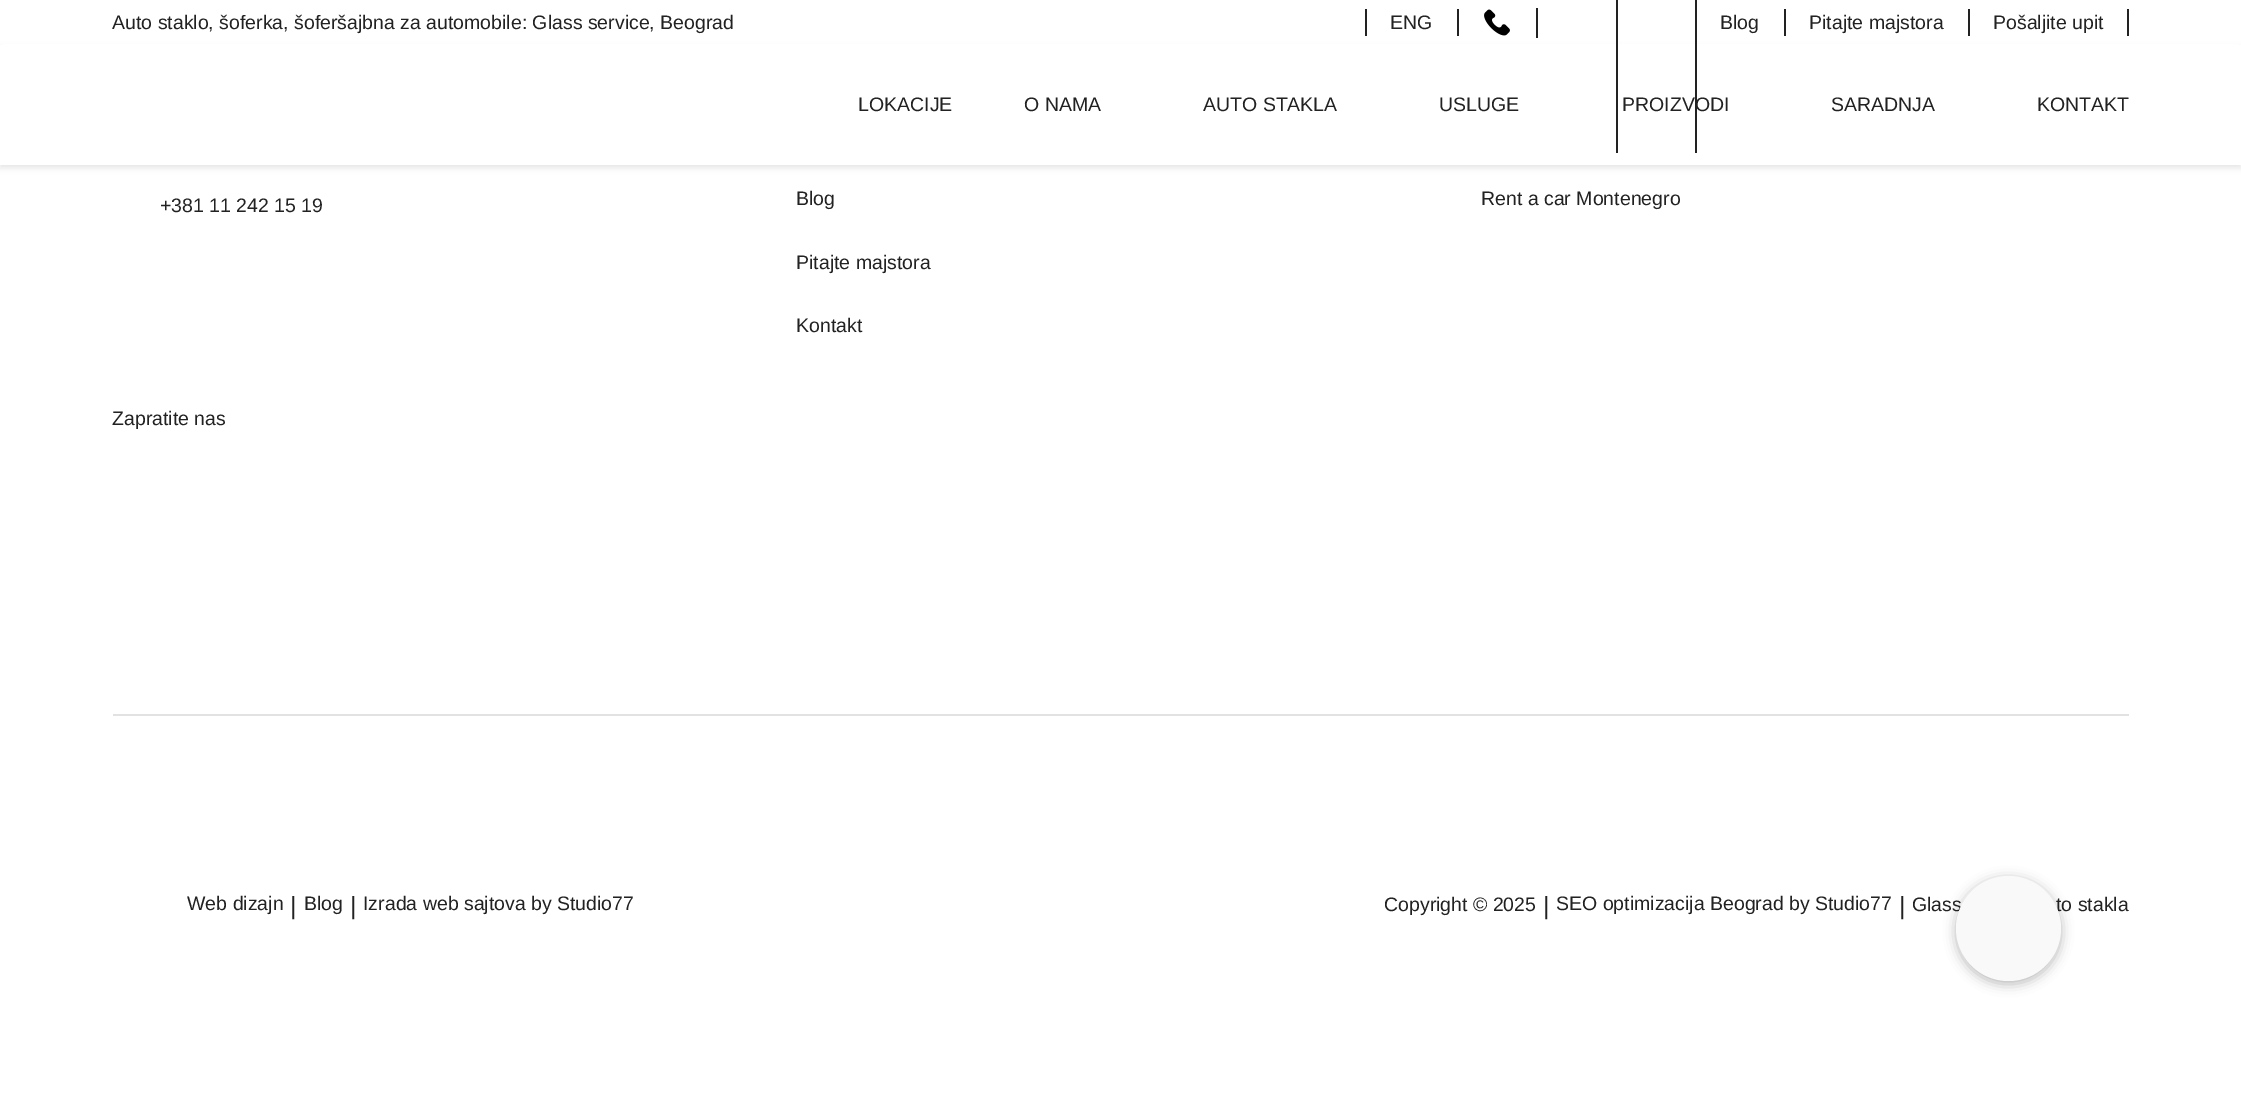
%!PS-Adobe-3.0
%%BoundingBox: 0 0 2241 1093
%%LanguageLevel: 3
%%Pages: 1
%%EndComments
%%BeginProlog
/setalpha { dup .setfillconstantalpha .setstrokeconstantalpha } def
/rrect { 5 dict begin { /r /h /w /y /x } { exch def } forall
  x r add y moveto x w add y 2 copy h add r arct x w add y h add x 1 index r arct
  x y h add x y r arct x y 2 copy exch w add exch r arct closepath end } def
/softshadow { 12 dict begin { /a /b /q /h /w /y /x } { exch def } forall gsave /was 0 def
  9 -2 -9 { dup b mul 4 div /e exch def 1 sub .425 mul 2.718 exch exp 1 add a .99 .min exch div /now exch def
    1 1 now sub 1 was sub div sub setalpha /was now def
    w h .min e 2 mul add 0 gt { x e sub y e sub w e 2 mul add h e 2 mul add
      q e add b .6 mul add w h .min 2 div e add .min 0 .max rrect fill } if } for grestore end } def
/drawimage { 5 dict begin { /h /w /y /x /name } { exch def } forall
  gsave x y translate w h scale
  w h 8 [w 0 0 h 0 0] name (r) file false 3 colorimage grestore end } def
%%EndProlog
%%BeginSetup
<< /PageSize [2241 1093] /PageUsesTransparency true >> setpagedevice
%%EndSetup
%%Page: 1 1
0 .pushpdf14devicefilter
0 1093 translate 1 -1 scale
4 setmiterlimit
1 setgray
0 0 2241 1093 rectfill
0 setgray
0 48 2241 120 0 3 0.1 softshadow
1 setgray
3 44 2235 1 rectfill
0.133 setgray
1457 9 2 27 rectfill
1365 9 2 27 rectfill
1536 8 2 30 rectfill
(images/1.raw) 1484 9 26 27 drawimage
1 setgray
0 45 2241 120 rectfill
0.133 setgray
1616 0 2 153 rectfill
1695 0 2 153 rectfill
1784 9 2 27 rectfill
1968 9 2 27 rectfill
2127 9 2 27 rectfill
0.886 setgray
113 714 2016 2 rectfill
0.388 setgray
1956 879 105 105 52.5 6 0.45 softshadow
/LiberationSans-Regular [19.5 0 0 -19.5 0 0] selectfont
0.133 setgray
112 29 moveto (Auto staklo, šoferka, šoferšajbna za automobile: Glass service, Beograd) show
1390 29 moveto (ENG) show
1720 29 moveto (Blog) show
1809 29 moveto (Pitajte majstora) show
1993 29 moveto (Pošaljite upit) show
858 111 moveto (LOKACIJE) show
1024 111 moveto (O NAMA) show
1203 111 moveto (AUTO STAKLA) show
1439 111 moveto (USLUGE) show
1622 111 moveto (PROIZVODI) show
1831 111 moveto (SARADNJA) show
2037 111 moveto (KONTAKT) show
160 212 moveto (+381 11 242 15 19) show
112 425 moveto (Zapratite nas) show
796 205 moveto (Blog) show
796 269 moveto (Pitajte majstora) show
796 332 moveto (Kontakt) show
1481 205 moveto (Rent a car Montenegro) show
187 910 moveto (Web dizajn) show
/LiberationSans-Regular [25 0 0 -25 0 0] selectfont
290 914 moveto (|) show
/LiberationSans-Regular [19.5 0 0 -19.5 0 0] selectfont
304 910 moveto (Blog) show
/LiberationSans-Regular [25 0 0 -25 0 0] selectfont
350 914 moveto (|) show
/LiberationSans-Regular [19.5 0 0 -19.5 0 0] selectfont
363 910 moveto (Izrada web sajtova by Studio77) show
1384 911 moveto (Copyright © 2025) show
/LiberationSans-Regular [25 0 0 -25 0 0] selectfont
1543 914 moveto (|) show
/LiberationSans-Regular [19.5 0 0 -19.5 0 0] selectfont
1556 910 moveto (SEO optimizacija Beograd by Studio77) show
/LiberationSans-Regular [25 0 0 -25 0 0] selectfont
1899 914 moveto (|) show
/LiberationSans-Regular [19.5 0 0 -19.5 0 0] selectfont
1912 911 moveto (Glass) show
2056 911 moveto (to stakla) show
0.976 setgray
newpath 2008.5 928.5 52.5 0 360 arc closepath fill
.poppdf14devicefilter showpage
%%EOF
